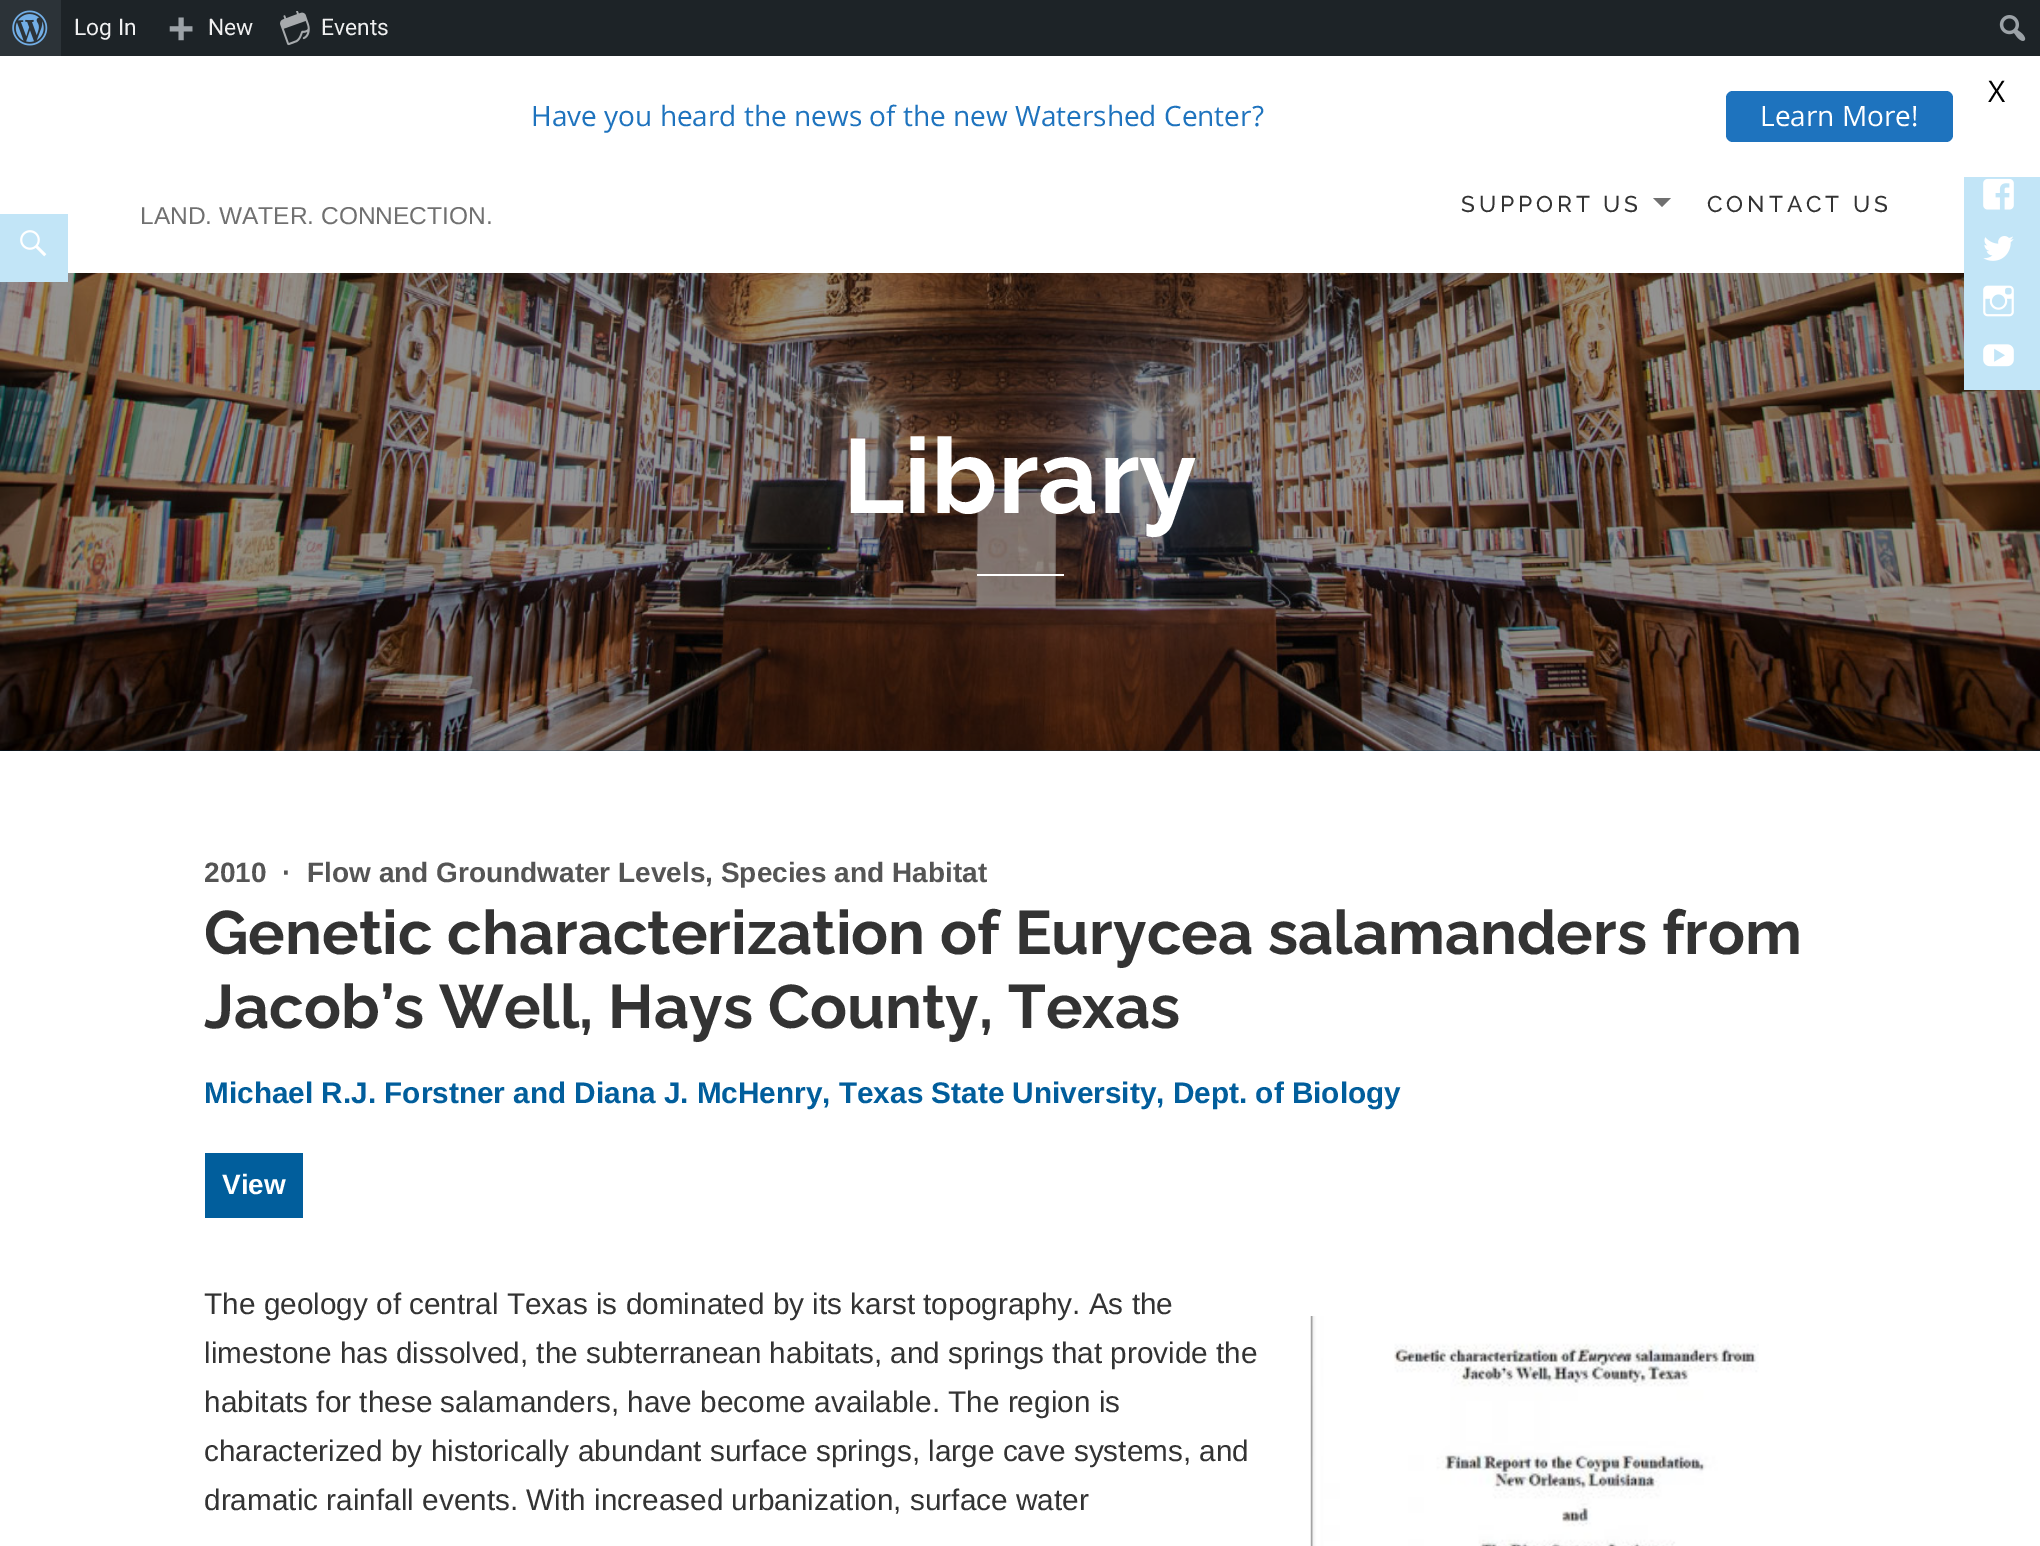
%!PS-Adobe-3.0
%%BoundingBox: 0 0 2040 1546
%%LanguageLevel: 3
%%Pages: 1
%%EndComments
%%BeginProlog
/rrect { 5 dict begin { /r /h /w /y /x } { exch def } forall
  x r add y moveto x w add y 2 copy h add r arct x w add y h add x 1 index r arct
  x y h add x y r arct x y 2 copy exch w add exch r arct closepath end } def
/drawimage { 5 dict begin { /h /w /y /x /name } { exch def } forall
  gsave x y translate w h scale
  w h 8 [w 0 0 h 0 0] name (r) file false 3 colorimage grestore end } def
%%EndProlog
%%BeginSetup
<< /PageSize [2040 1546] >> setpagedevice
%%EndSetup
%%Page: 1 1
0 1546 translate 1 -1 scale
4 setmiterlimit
1 setgray
0 0 2040 1546 rectfill
0.114 0.137 0.153 setrgbcolor
61 0 1979 56 rectfill
0.173 0.2 0.22 setrgbcolor
0 0 61 56 rectfill
(images/1.raw) 12 10 36 36 drawimage
(images/2.raw) 169 17 24 24 drawimage
(images/3.raw) 280 11 30 35 drawimage
(images/4.raw) 1999 15 27 26 drawimage
0.118 0.451 0.745 setrgbcolor
1726 91 227 51 7 rrect fill
0.439 setgray
newpath 1653 198 moveto 1671 198 lineto 1662 207 lineto closepath fill
(images/10.raw) 0 273 2040 478 drawimage
0.761 0.898 0.969 setrgbcolor
1964 177 76 213 rectfill
(images/5.raw) 1983 178 31 32 drawimage
(images/6.raw) 1983 236 31 25 drawimage
(images/7.raw) 1983 285 31 32 drawimage
(images/8.raw) 1983 344 31 23 drawimage
0 214 68 68 rectfill
(images/9.raw) 20 230 27 27 drawimage
1 setgray
977 574 87 2 rectfill
0.004 0.369 0.612 setrgbcolor
205 1153 98 65 rectfill
(images/11.raw) 1310 1316 449 230 drawimage
/Roboto-Regular [22.75 0 0 -22.75 0 0] selectfont
0.941 0.941 0.945 setrgbcolor
74 35 moveto (Log In) show
208 35 moveto (New) show
321 35 moveto (Events) show
/OpenSans-Regular [29.75 0 0 -29.75 0 0] selectfont
0 setgray
1988 102 moveto (X) show
/OpenSans-Regular [28 0 0 -28 0 0] selectfont
0.118 0.451 0.745 setrgbcolor
531 126 moveto (Have you heard the news of the new Watershed Center?) show
1 setgray
1760 126 moveto (Learn More!) show
/Raleway-Medium [22.75 0 0 -22.75 0 0] selectfont
0.2 setgray
1461 212 moveto 3.9 0 (SUPPORT US) ashow
1707 212 moveto 3.9 0 (CONTACT US) ashow
/LiberationSans-Regular [24.5 0 0 -24.5 0 0] selectfont
0.439 setgray
140 224 moveto (LAND. WATER. CONNECTION.) show
/Raleway-Bold [105 0 0 -105 0 0] selectfont
1 setgray
843 513 moveto (Library) show
/LiberationSans-Bold [28 0 0 -28 0 0] selectfont
0.333 setgray
204 882 moveto (2010) show
282 882 moveto (·) show
307 882 moveto (Flow and Groundwater Levels, Species and Habitat) show
/Raleway-Bold [61.25 0 0 -61.25 0 0] selectfont
0.2 setgray
204 954 moveto (Genetic characterization of Eurycea salamanders from) show
204 1028 moveto (Jacob’s Well, Hays County, Texas) show
/LiberationSans-Bold [29.75 0 0 -29.75 0 0] selectfont
0.004 0.369 0.612 setrgbcolor
204 1103 moveto (Michael R.J. Forstner and Diana J. McHenry, Texas State University, Dept. of Biology) show
/LiberationSans-Bold [28 0 0 -28 0 0] selectfont
1 setgray
222 1194 moveto (View) show
/LiberationSans-Regular [29.75 0 0 -29.75 0 0] selectfont
0.2 setgray
204 1314 moveto (The geology of central Texas is dominated by its karst topography. As the) show
204 1363 moveto (limestone has dissolved, the subterranean habitats, and springs that provide the) show
204 1412 moveto (habitats for these salamanders, have become available. The region is) show
204 1461 moveto (characterized by historically abundant surface springs, large cave systems, and) show
204 1510 moveto (dramatic rainfall events. With increased urbanization, surface water) show
showpage
%%EOF
